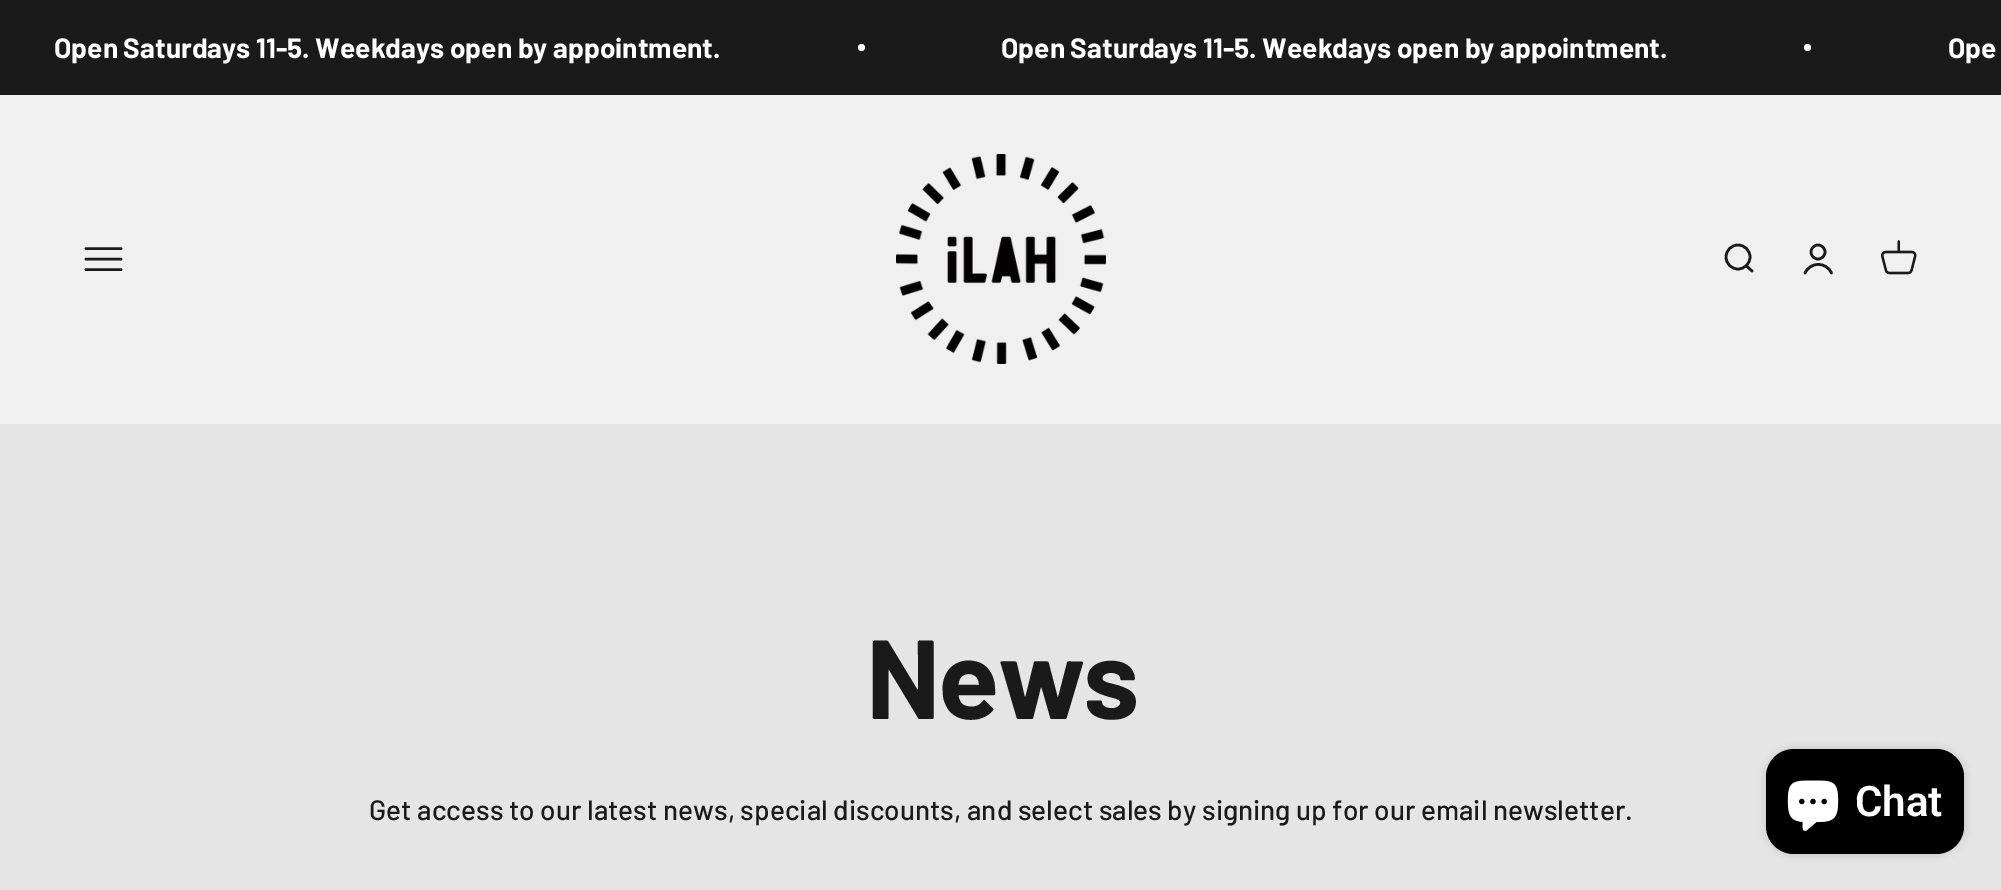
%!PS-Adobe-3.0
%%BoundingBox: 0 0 2001 890
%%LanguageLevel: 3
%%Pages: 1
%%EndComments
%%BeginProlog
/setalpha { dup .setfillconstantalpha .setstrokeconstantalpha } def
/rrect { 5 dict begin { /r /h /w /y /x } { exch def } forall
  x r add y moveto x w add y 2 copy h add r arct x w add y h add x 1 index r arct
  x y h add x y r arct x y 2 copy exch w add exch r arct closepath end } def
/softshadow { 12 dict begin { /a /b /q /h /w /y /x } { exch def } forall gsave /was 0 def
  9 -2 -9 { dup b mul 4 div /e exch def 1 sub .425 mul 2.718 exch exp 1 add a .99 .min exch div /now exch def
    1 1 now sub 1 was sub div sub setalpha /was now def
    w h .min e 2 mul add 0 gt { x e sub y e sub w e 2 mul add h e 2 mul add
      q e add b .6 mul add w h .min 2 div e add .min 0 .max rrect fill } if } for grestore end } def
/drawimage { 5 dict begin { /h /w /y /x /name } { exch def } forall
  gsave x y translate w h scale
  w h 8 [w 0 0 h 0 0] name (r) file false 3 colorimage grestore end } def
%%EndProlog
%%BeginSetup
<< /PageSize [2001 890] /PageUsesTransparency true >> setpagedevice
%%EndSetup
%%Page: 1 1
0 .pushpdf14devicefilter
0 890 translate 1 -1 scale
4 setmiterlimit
0.941 setgray
0 0 2001 890 rectfill
0.102 setgray
0 0 2001 95 rectfill
1 setgray
newpath 861.5 47.5 3.5 0 360 arc closepath fill
newpath 1807.5 47.5 3.5 0 360 arc closepath fill
0.102 setgray
2.6 setlinewidth
1 setlinecap
newpath 86 248.5 moveto 121 248.5 lineto 86 259 moveto 121 259 lineto 86 269.5 moveto 121 269.5 lineto stroke
(images/1.raw) 896 154 210 210 drawimage
0 setlinecap
newpath 1738 257 12 0 360 arc closepath stroke
1 setlinecap
1 setlinejoin
newpath 1746.5 266 moveto 1752 271 lineto stroke
0 setlinecap
0 setlinejoin
newpath 1818 252 7 0 360 arc closepath stroke
1 setlinecap
newpath 1805 273 moveto 1810.5 261.5 1826 261.5 1831.5 273 curveto stroke
(images/2.raw) 1881 240 36 35 drawimage
0.898 setgray
0 424 2001 466 rectfill
0 setgray
1766 749 198 105 28 4.5 0.15 softshadow
1766 749 198 105 28 rrect fill
(images/3.raw) 1787 780 52 51 drawimage
/Barlow-Bold [28 0 0 -28 0 0] selectfont
1 setgray
54 58 moveto (Open Saturdays 11-5. Weekdays open by appointment.) show
1001 58 moveto (Open Saturdays 11-5. Weekdays open by appointment.) show
1948 58 moveto (Ope) show
/Barlow-Bold [112 0 0 -112 0 0] selectfont
0.102 setgray
866 719 moveto -2 0 (News) ashow
/Barlow-Medium [28 0 0 -28 0 0] selectfont
369 820 moveto (Get access to our latest news, special discounts, and select sales by signing up for our email newsletter.) show
/Roboto-SemiBold [42 0 0 -42 0 0] selectfont
1 setgray
1855 816 moveto (Chat) show
.poppdf14devicefilter showpage
%%EOF
